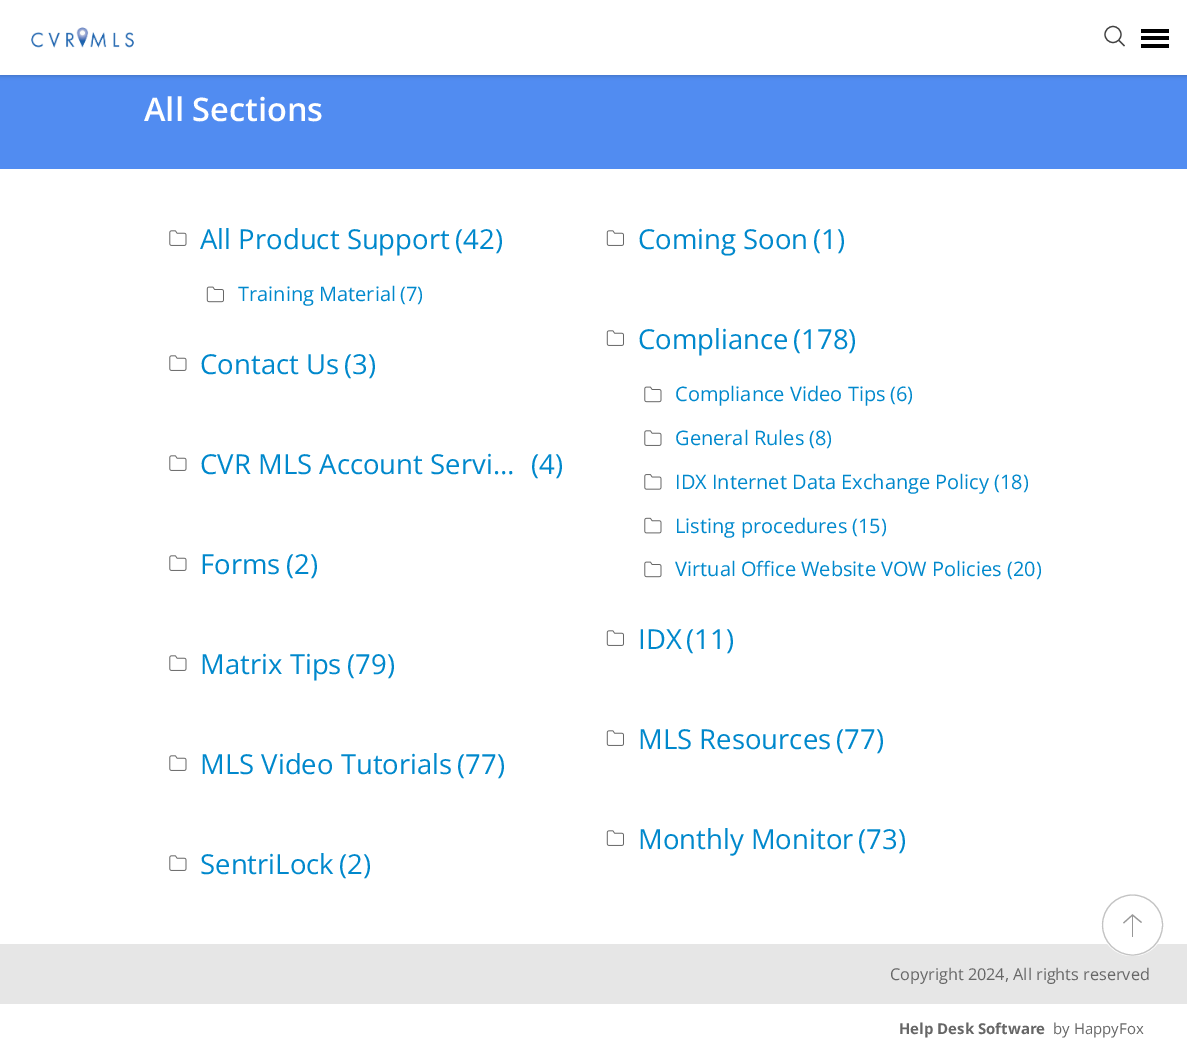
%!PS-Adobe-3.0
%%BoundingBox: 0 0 1187 1038
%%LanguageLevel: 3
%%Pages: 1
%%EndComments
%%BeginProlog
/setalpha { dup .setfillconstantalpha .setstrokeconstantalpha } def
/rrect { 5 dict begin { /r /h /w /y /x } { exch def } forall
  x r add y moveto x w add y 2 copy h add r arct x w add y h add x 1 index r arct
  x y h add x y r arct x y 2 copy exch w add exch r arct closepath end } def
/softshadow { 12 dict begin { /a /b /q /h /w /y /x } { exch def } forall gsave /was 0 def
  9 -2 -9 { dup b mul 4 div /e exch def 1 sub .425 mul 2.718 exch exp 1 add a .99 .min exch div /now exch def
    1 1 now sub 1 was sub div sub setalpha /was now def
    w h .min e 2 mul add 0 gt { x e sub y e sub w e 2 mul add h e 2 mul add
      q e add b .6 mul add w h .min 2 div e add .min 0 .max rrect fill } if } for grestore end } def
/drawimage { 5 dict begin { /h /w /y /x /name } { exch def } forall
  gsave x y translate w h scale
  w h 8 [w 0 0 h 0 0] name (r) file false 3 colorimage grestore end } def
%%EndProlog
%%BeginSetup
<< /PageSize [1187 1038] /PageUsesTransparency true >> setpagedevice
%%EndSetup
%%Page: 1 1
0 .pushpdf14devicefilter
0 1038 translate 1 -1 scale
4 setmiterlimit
1 setgray
0 0 1187 1038 rectfill
0.318 0.549 0.945 setrgbcolor
0 75 1187 94 rectfill
0 setgray
0 1 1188 75 0 2 0.2 softshadow
1 setgray
0 0 1187 75 rectfill
(images/1.raw) 31 27 103 21 drawimage
0.259 setgray
1.2 setlinewidth
newpath 1113 34.5 8 0 360 arc closepath stroke
2 setlinecap
newpath 1119.5 41 moveto 1124 45.5 lineto stroke
0 setgray
1141 29 28 4 rectfill
1141 36 28 4 rectfill
1141 44 28 4 rectfill
(images/2.raw) 169 230 18 16 drawimage
(images/3.raw) 206 286 18 17 drawimage
(images/4.raw) 606 230 18 16 drawimage
(images/2.raw) 169 355 18 16 drawimage
(images/4.raw) 606 330 18 16 drawimage
(images/5.raw) 644 386 18 17 drawimage
(images/2.raw) 644 430 18 16 drawimage
(images/6.raw) 644 474 18 16 drawimage
(images/7.raw) 644 517 18 17 drawimage
(images/5.raw) 644 561 18 17 drawimage
(images/2.raw) 169 455 18 16 drawimage
(images/2.raw) 169 555 18 16 drawimage
(images/4.raw) 606 630 18 16 drawimage
(images/2.raw) 169 655 18 16 drawimage
(images/4.raw) 606 730 18 16 drawimage
(images/2.raw) 169 755 18 16 drawimage
(images/4.raw) 606 830 18 16 drawimage
(images/2.raw) 169 855 18 16 drawimage
0.902 setgray
0 944 1187 60 rectfill
1 setgray
1101 894 63 62 31 rrect fill
0.765 setgray
1.1 setlinewidth
0 setlinecap
newpath 1132.5 925 30 0 360 arc closepath stroke
0.592 setgray
1132 915 1 22 rectfill
newpath 1123.5 923 moveto 1132.5 915 lineto 1141.5 922.5 lineto stroke
/OpenSans-SemiBold [32.5 0 0 -32.5 0 0] selectfont
1 setgray
144 121 moveto (All Sections) show
/OpenSans-Regular [27.5 0 0 -27.5 0 0] selectfont
0 0.533 0.8 setrgbcolor
200 249 moveto (All Product Support) show
455 249 moveto (\(42\)) show
gsave
238 281 157 25 rectclip
/OpenSans-Regular [20 0 0 -20 0 0] selectfont
238 301 moveto (Training Material) show
grestore
/OpenSans-Regular [20 0 0 -20 0 0] selectfont
400 301 moveto (\(7\)) show
/OpenSans-Regular [27.5 0 0 -27.5 0 0] selectfont
638 249 moveto (Coming Soon) show
813 249 moveto (\(1\)) show
200 374 moveto (Contact Us) show
344 374 moveto (\(3\)) show
638 349 moveto (Compliance) show
793 349 moveto (\(178\)) show
/OpenSans-Regular [20 0 0 -20 0 0] selectfont
675 401 moveto (Compliance Video Tips) show
890 401 moveto (\(6\)) show
675 445 moveto (General Rules) show
809 445 moveto (\(8\)) show
675 489 moveto (IDX Internet Data Exchange Policy) show
994 489 moveto (\(18\)) show
675 533 moveto (Listing procedures) show
852 533 moveto (\(15\)) show
675 576 moveto (Virtual Office Website VOW Policies) show
1007 576 moveto (\(20\)) show
/OpenSans-Regular [27.5 0 0 -27.5 0 0] selectfont
200 474 moveto (CVR MLS Account Servi…) show
531 474 moveto (\(4\)) show
200 574 moveto (Forms) show
286 574 moveto (\(2\)) show
638 649 moveto (IDX) show
686 649 moveto (\(11\)) show
200 674 moveto (Matrix Tips) show
347 674 moveto (\(79\)) show
638 749 moveto (MLS Resources) show
836 749 moveto (\(77\)) show
200 774 moveto (MLS Video Tutorials) show
457 774 moveto (\(77\)) show
638 849 moveto (Monthly Monitor) show
858 849 moveto (\(73\)) show
200 874 moveto (SentriLock) show
339 874 moveto (\(2\)) show
/OpenSans-Regular [16.25 0 0 -16.25 0 0] selectfont
0.4 setgray
890 980 moveto (Copyright 2024, All rights reserved) show
/OpenSans-Bold [15 0 0 -15 0 0] selectfont
899 1034 moveto (Help Desk Software) show
/OpenSans-Regular [15 0 0 -15 0 0] selectfont
1053 1034 moveto (by HappyFox) show
.poppdf14devicefilter showpage
%%EOF
